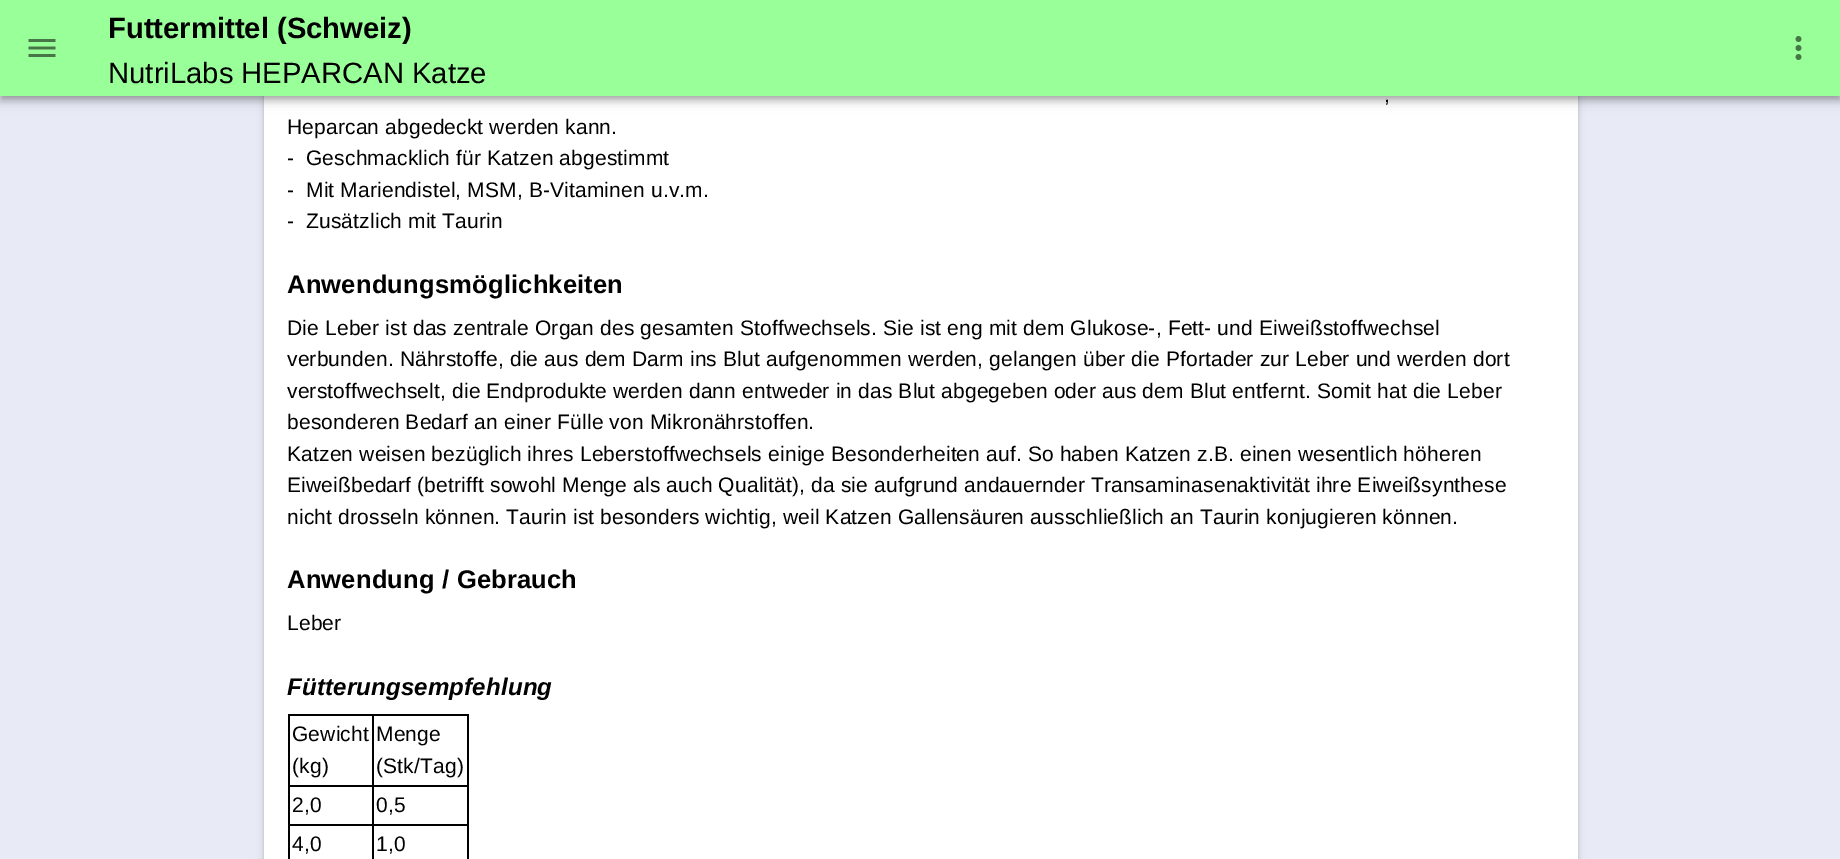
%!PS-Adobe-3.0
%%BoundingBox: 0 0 1840 859
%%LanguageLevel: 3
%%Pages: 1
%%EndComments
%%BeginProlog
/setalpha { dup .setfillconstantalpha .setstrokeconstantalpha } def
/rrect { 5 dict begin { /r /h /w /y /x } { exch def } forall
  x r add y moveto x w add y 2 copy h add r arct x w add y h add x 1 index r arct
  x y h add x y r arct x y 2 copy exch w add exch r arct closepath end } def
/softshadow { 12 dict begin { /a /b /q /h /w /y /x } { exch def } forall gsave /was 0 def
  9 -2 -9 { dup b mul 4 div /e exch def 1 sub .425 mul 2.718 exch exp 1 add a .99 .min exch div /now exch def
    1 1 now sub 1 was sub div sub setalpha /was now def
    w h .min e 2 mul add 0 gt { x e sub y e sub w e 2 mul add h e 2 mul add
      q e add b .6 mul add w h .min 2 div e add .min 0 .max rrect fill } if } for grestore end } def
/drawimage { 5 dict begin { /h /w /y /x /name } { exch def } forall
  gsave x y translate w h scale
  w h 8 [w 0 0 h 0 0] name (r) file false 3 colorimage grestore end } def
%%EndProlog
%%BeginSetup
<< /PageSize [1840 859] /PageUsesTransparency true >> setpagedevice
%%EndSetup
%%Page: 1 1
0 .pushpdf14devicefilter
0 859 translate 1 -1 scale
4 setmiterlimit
0.91 0.918 0.965 setrgbcolor
0 0 1840 859 rectfill
0 setgray
264 -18 1314 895 6 4 0.12 softshadow
264 -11 1314 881 6 1.5 0.14 softshadow
1 setgray
264 96 1314 763 rectfill
0 setgray
0 2 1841 96 0 7.5 0.12 softshadow
0 6 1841 96 0 4 0.14 softshadow
2 5 1837 93 0 3 0.2 softshadow
0.6 1 0.6 setrgbcolor
0 0 1840 96 rectfill
(images/1.raw) 28 39 28 18 drawimage
(images/2.raw) 1795 36 7 24 drawimage
0 setgray
288 714 180 2 rectfill
467 714 2 145 rectfill
288 714 2 145 rectfill
372 785 96 2 rectfill
372 824 96 2 rectfill
372 824 2 35 rectfill
288 824 86 2 rectfill
372 785 2 40 rectfill
288 785 86 2 rectfill
372 714 2 72 rectfill
/LiberationSans-Bold [29.25 0 0 -29.25 0 0] selectfont
108 38 moveto (Futtermittel \(Schweiz\)) show
/LiberationSans-Regular [29.25 0 0 -29.25 0 0] selectfont
108 83 moveto (NutriLabs HEPARCAN Katze) show
/LiberationSans-Regular [21 0 0 -21 0 0] selectfont
1384 102 moveto 0.15 0 (,) ashow
287 134 moveto 0.15 0 (Heparcan abgedeckt werden kann.) ashow
287 165 moveto 0.15 0 (-) ashow
306 165 moveto 0.15 0 (Geschmacklich für Katzen abgestimmt) ashow
287 197 moveto 0.15 0 (-) ashow
306 197 moveto 0.15 0 (Mit Mariendistel, MSM, B-Vitaminen u.v.m.) ashow
287 228 moveto 0.15 0 (-) ashow
306 228 moveto 0.15 0 (Zusätzlich mit Taurin) ashow
/LiberationSans-Bold [25.6 0 0 -25.6 0 0] selectfont
287 293 moveto 0.15 0 (Anwendungsmöglichkeiten) ashow
/LiberationSans-Regular [21 0 0 -21 0 0] selectfont
287 335 moveto 0.15 0 (Die Leber ist das zentrale Organ des gesamten Stoffwechsels. Sie ist eng mit dem Glukose-, Fett- und Eiweißstoffwechsel) ashow
287 366 moveto 0.15 0 (verbunden. Nährstoffe, die aus dem Darm ins Blut aufgenommen werden, gelangen über die Pfortader zur Leber und werden dort) ashow
287 398 moveto 0.15 0 (verstoffwechselt, die Endprodukte werden dann entweder in das Blut abgegeben oder aus dem Blut entfernt. Somit hat die Leber) ashow
287 429 moveto 0.15 0 (besonderen Bedarf an einer Fülle von Mikronährstoffen.) ashow
287 461 moveto 0.15 0 (Katzen weisen bezüglich ihres Leberstoffwechsels einige Besonderheiten auf. So haben Katzen z.B. einen wesentlich höheren) ashow
287 492 moveto 0.15 0 (Eiweißbedarf \(betrifft sowohl Menge als auch Qualität\), da sie aufgrund andauernder Transaminasenaktivität ihre Eiweißsynthese) ashow
287 524 moveto 0.15 0 (nicht drosseln können. Taurin ist besonders wichtig, weil Katzen Gallensäuren ausschließlich an Taurin konjugieren können.) ashow
/LiberationSans-Bold [25.6 0 0 -25.6 0 0] selectfont
287 588 moveto 0.15 0 (Anwendung / Gebrauch) ashow
/LiberationSans-Regular [21 0 0 -21 0 0] selectfont
287 630 moveto 0.15 0 (Leber) ashow
/LiberationSans-BoldItalic [24.1 0 0 -24.1 0 0] selectfont
287 695 moveto 0.15 0 (Fütterungsempfehlung) ashow
/LiberationSans-Regular [21 0 0 -21 0 0] selectfont
292 741 moveto 0.15 0 (Gewicht) ashow
292 773 moveto 0.15 0 (\(kg\)) ashow
376 741 moveto 0.15 0 (Menge) ashow
376 773 moveto 0.15 0 (\(Stk/Tag\)) ashow
292 812 moveto 0.15 0 (2,0) ashow
376 812 moveto 0.15 0 (0,5) ashow
292 851 moveto 0.15 0 (4,0) ashow
376 851 moveto 0.15 0 (1,0) ashow
.poppdf14devicefilter showpage
%%EOF
